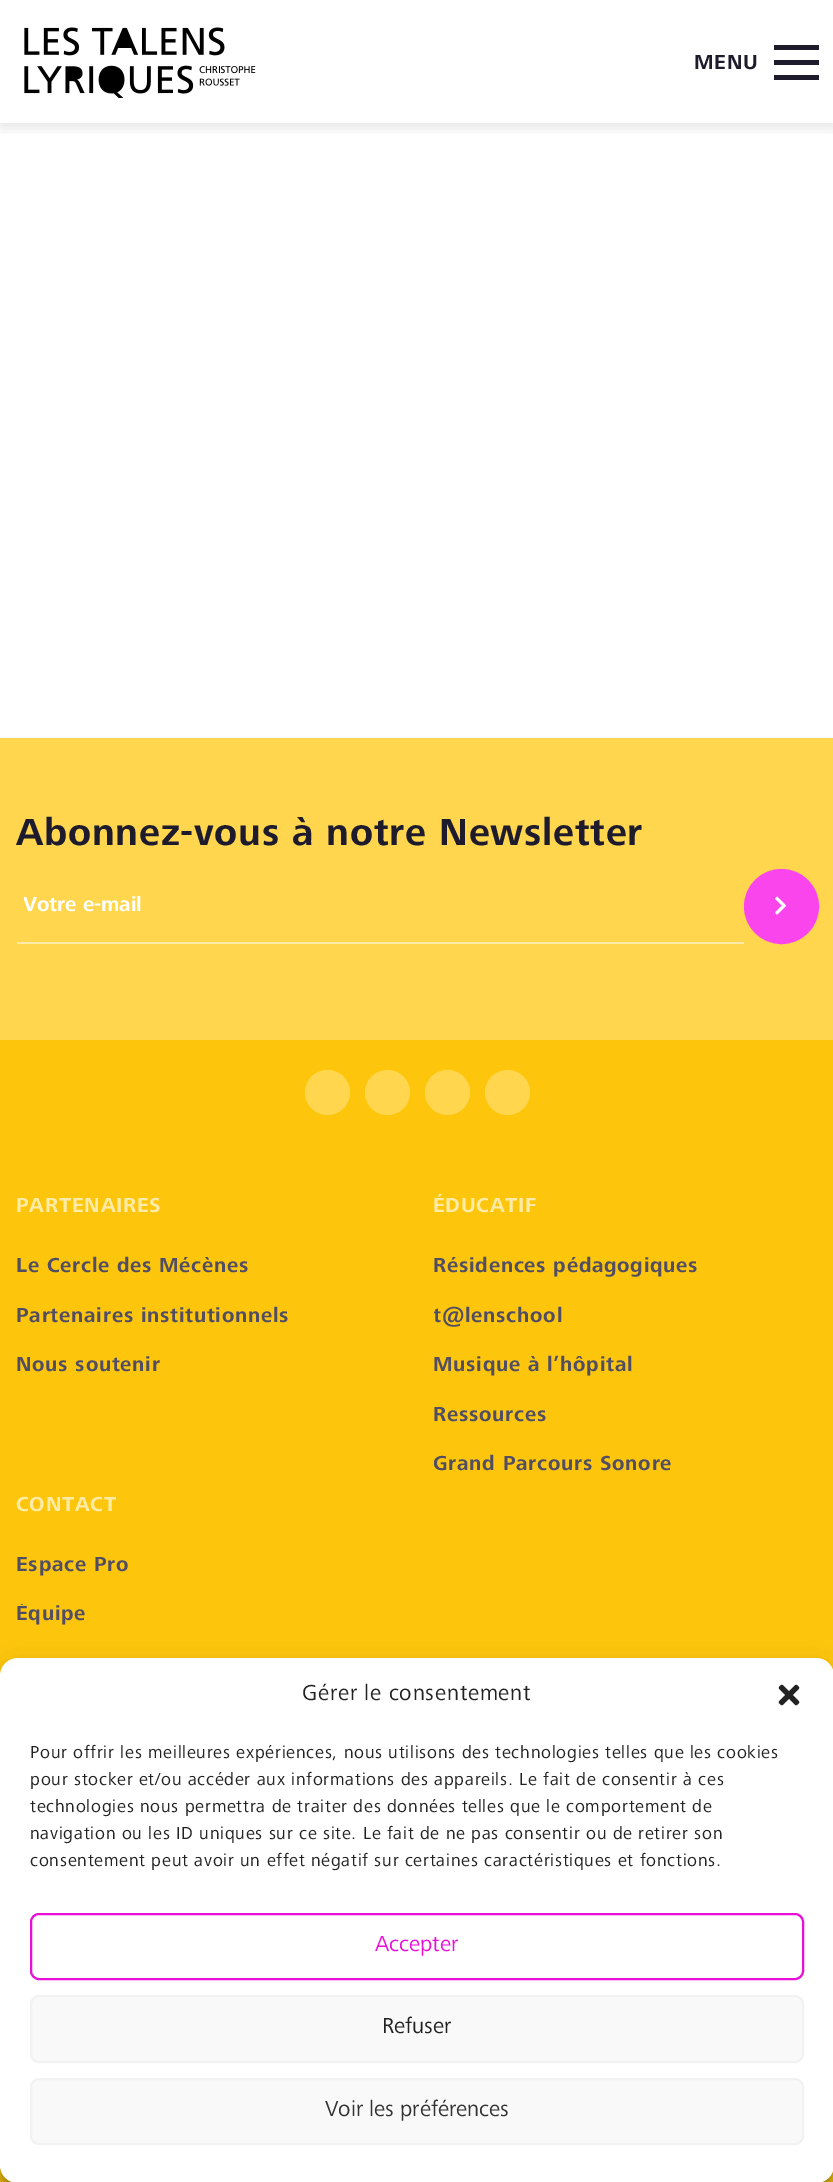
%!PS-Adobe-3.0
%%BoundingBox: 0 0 833 2182
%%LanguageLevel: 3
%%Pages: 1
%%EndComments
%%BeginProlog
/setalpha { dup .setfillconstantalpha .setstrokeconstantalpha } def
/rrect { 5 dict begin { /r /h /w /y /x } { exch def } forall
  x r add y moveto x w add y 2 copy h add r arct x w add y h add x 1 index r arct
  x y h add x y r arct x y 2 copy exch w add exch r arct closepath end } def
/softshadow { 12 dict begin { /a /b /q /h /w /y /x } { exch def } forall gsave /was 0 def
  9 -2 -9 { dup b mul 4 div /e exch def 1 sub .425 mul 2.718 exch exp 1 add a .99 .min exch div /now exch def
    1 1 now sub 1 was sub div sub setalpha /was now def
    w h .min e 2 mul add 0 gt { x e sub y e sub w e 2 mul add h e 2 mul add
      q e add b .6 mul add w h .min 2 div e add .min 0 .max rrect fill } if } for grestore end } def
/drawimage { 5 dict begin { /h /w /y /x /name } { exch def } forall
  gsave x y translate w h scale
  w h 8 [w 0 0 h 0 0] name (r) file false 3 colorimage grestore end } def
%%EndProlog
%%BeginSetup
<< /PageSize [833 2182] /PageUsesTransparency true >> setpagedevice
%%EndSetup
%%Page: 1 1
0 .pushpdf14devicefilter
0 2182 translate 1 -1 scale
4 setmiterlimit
1 setgray
0 0 833 2182 rectfill
gsave
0 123 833 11 rectclip
0 setgray
0 5 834 123 0 7 0.1 softshadow
grestore
(images/1.raw) 24 27 232 71 drawimage
0.118 0.11 0.173 setrgbcolor
774 45 45 5 rectfill
774 60 45 5 rectfill
774 75 45 5 rectfill
1 0.839 0.302 setrgbcolor
0 738 833 302 rectfill
1 0.922 0.659 setrgbcolor
17 942 727 2 rectfill
0.98 0.271 0.925 setrgbcolor
newpath 781.5 906.5 36 0 360 arc closepath gsave fill grestore
3 setlinewidth
stroke
(images/2.raw) 775 896 11 19 drawimage
0.992 0.776 0.051 setrgbcolor
0 1040 833 1142 rectfill
1 0.839 0.302 setrgbcolor
newpath 327.5 1092.5 22.5 0 360 arc closepath fill
newpath 387.5 1092.5 22.5 0 360 arc closepath fill
newpath 447.5 1092.5 22.5 0 360 arc closepath fill
newpath 507.5 1092.5 22.5 0 360 arc closepath fill
0 setgray
0 1667 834 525 18 4.5 0.23 softshadow
0 1673 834 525 18 15 0.19 softshadow
1 setgray
0 1658 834 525 18 rrect fill
(images/3.raw) 778 1684 22 22 drawimage
0.91 0.063 0.843 setrgbcolor
2 setlinewidth
31 1914 772 65 8 rrect stroke
0.976 setgray
31 1996 772 66 8 rrect gsave fill grestore
0.949 setgray
stroke
0.976 setgray
31 2079 772 65 8 rrect gsave fill grestore
0.949 setgray
stroke
/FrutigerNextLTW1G-Bold [21 0 0 -21 0 0] selectfont
0.118 0.11 0.173 setrgbcolor
694 69 moveto 0.75 0 (MENU) ashow
/FrutigerNextLTW1G-Bold [39 0 0 -39 0 0] selectfont
16 845 moveto 0.75 0 (Abonnez-vous à notre Newsletter) ashow
gsave
24 896 713 25 rectclip
/FrutigerNextLTW1G-Bold [21 0 0 -21 0 0] selectfont
1 setgray
23 911 moveto (Votre e-mail) show
grestore
/FrutigerNextLTW1G-Bold [21 0 0 -21 0 0] selectfont
1 0.922 0.659 setrgbcolor
16 1212 moveto 0.75 0 (PARTENAIRES) ashow
0.318 0.302 0.384 setrgbcolor
16 1272 moveto 0.75 0 (Le Cercle des Mécènes) ashow
16 1322 moveto 0.75 0 (Partenaires institutionnels) ashow
16 1371 moveto 0.75 0 (Nous soutenir) ashow
1 0.922 0.659 setrgbcolor
433 1212 moveto 0.75 0 (ÉDUCATIF) ashow
0.318 0.302 0.384 setrgbcolor
433 1272 moveto 0.75 0 (Résidences pédagogiques) ashow
gsave
434 1305 129 26 rectclip
433 1322 moveto 0.75 0 (t@lenschool) ashow
grestore
433 1371 moveto 0.75 0 (Musique à l’hôpital) ashow
433 1421 moveto 0.75 0 (Ressources) ashow
gsave
434 1454 238 25 rectclip
433 1470 moveto 0.75 0 (Grand Parcours Sonore) ashow
grestore
1 0.922 0.659 setrgbcolor
16 1511 moveto 0.75 0 (CONTACT) ashow
0.318 0.302 0.384 setrgbcolor
16 1571 moveto 0.75 0 (Espace Pro) ashow
gsave
17 1604 69 25 rectclip
16 1620 moveto 0.75 0 (Équipe) ashow
grestore
/FrutigerNextLTW1G-Regular [22.5 0 0 -22.5 0 0] selectfont
0.133 setgray
302 1700 moveto 0.75 0 (Gérer le consentement) ashow
/FrutigerNextLTW1G-Regular [18 0 0 -18 0 0] selectfont
30 1758 moveto 0.75 0 (Pour offrir les meilleures expériences, nous utilisons des technologies telles que les cookies) ashow
30 1785 moveto 0.75 0 (pour stocker et/ou accéder aux informations des appareils. Le fait de consentir à ces) ashow
30 1812 moveto 0.75 0 (technologies nous permettra de traiter des données telles que le comportement de) ashow
30 1839 moveto 0.75 0 (navigation ou les ID uniques sur ce site. Le fait de ne pas consentir ou de retirer son) ashow
30 1866 moveto 0.75 0 (consentement peut avoir un effet négatif sur certaines caractéristiques et fonctions.) ashow
/FrutigerNextLTW1G-Regular [22.5 0 0 -22.5 0 0] selectfont
0.91 0.063 0.843 setrgbcolor
375 1951 moveto (Accepter) show
0.133 setgray
382 2033 moveto (Refuser) show
0.2 setgray
325 2116 moveto (Voir les préférences) show
.poppdf14devicefilter showpage
%%EOF
